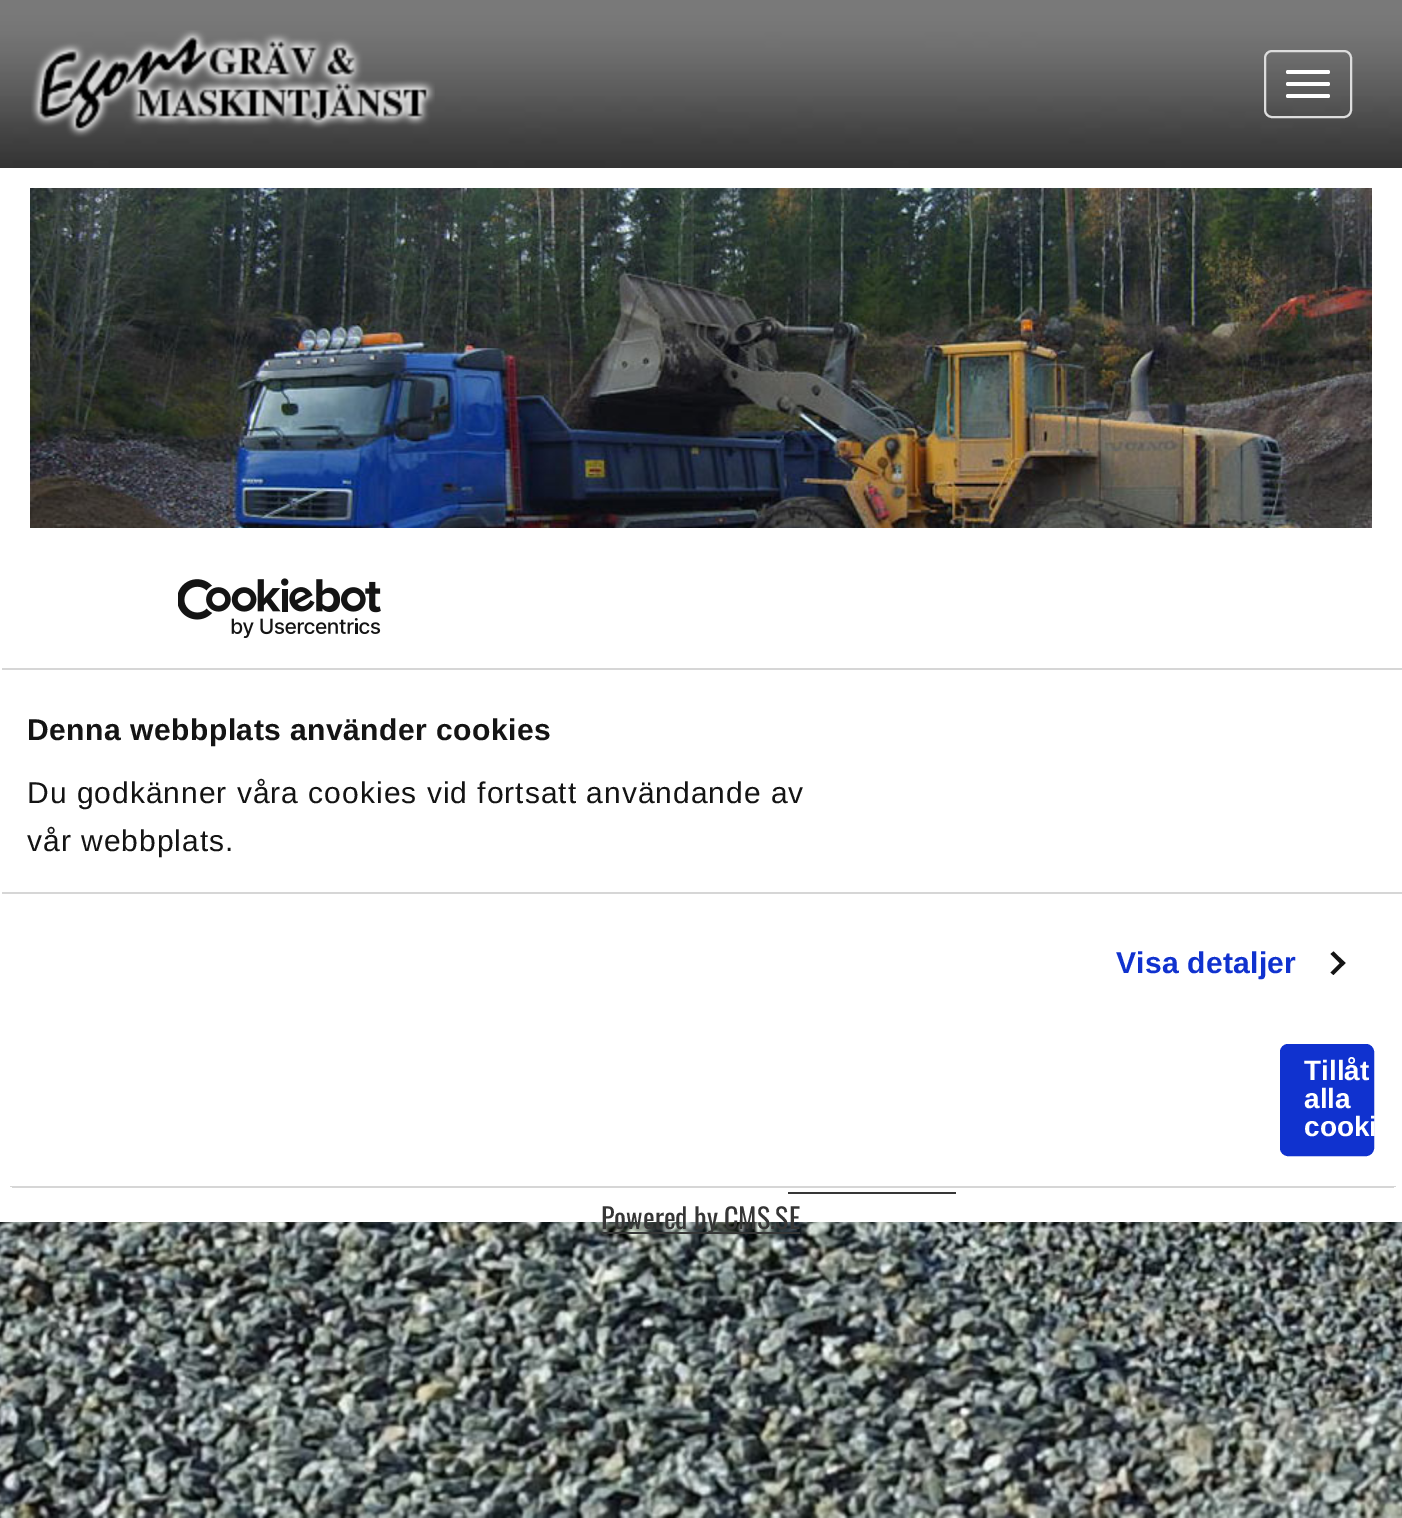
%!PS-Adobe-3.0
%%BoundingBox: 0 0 1402 1518
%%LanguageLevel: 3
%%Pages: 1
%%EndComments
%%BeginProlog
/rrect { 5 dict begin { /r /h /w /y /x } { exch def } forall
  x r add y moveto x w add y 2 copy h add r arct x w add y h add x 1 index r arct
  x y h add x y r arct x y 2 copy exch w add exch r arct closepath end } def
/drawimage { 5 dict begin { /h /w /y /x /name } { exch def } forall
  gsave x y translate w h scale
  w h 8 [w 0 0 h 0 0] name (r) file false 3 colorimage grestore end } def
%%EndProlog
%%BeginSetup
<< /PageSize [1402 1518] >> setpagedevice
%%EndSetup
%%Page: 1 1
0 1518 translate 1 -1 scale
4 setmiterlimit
1 setgray
0 0 1402 1518 rectfill
(images/1.raw) 0 0 1402 1518 drawimage
0 168 1402 1054 rectfill
0.839 setgray
2 668 1400 2 rectfill
(images/2.raw) 178 578 203 60 drawimage
2 892 1400 2 rectfill
0.078 setgray
newpath 1333.5 951.5 moveto 1345.5 963 lineto 1342.5 966 lineto 1330.5 954 lineto closepath fill
newpath 1342.5 960.5 moveto 1345.5 963 lineto 1333.5 975 lineto 1330.5 972.5 lineto closepath fill
gsave
2 528 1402 660 16 rrect clip newpath
0.839 setgray
2 1186 1400 2 rectfill
grestore
0.063 0.196 0.812 setrgbcolor
1282 1046 90 108 6 rrect gsave fill grestore
4 setlinewidth
stroke
(images/3.raw) 31 30 404 108 drawimage
0.867 setgray
2 setlinewidth
1265 51 86 66 7 rrect stroke
1 setgray
1286 70 44 4 2 rrect fill
1286 82 44 4 2 rrect fill
1286 94 44 4 2 rrect fill
(images/4.raw) 30 188 1342 340 drawimage
0.212 setgray
788 1192 168 2 rectfill
602 1232 198 2 rectfill
/LiberationSans-Bold [30 0 0 -30 0 0] selectfont
0.078 setgray
27 740 moveto 0.5 0 (Denna webbplats använder cookies) ashow
/LiberationSans-Regular [30 0 0 -30 0 0] selectfont
27 803 moveto 1 0 (Du godkänner våra cookies vid fortsatt användande av) ashow
27 851 moveto 1 0 (vår webbplats.) ashow
/LiberationSans-Bold [30 0 0 -30 0 0] selectfont
0.063 0.196 0.812 setrgbcolor
1116 973 moveto 0.25 0 (Visa detaljer) ashow
/LiberationSans-Bold [28 0 0 -28 0 0] selectfont
1 setgray
1304 1080 moveto (Tillåt) show
1304 1108 moveto (alla) show
1304 1136 moveto (cooki) show
/Oswald-Regular [28 0 0 -28 0 0] selectfont
0.212 setgray
601 1229 moveto (Powered by CMS.SE) show
showpage
%%EOF
